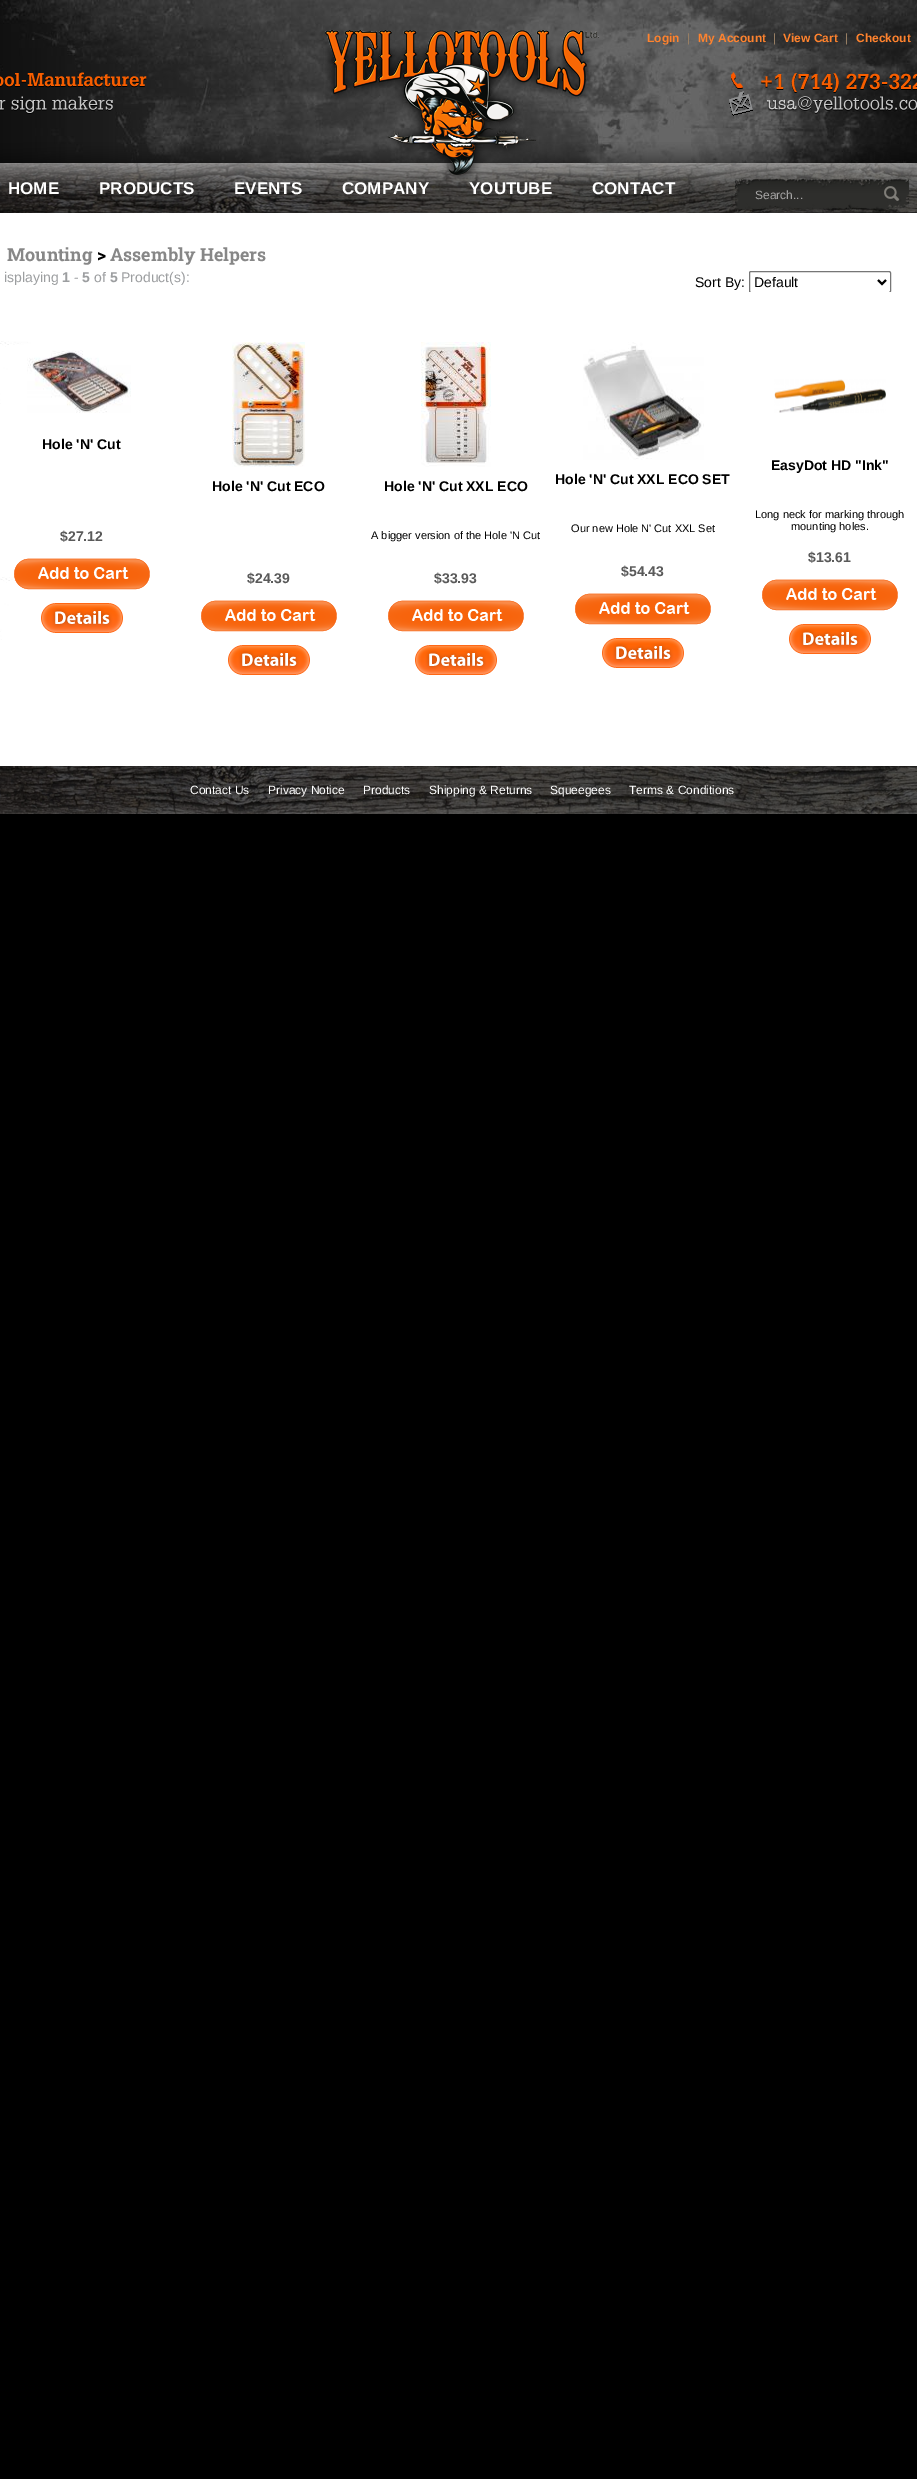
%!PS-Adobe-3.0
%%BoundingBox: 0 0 917 2479
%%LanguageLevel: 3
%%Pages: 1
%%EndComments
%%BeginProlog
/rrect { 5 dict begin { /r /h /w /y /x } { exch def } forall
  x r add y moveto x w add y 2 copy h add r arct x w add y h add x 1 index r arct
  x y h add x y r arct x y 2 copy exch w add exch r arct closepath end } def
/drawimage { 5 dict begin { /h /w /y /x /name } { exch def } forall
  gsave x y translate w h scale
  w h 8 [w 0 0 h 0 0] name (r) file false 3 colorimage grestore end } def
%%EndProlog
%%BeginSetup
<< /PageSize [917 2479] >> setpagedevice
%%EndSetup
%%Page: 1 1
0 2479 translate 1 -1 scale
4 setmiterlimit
0 setgray
0 0 917 2479 rectfill
(images/1.raw) 0 0 917 213 drawimage
(images/5.raw) 0 142 917 71 drawimage
(images/2.raw) 325 30 274 149 drawimage
(images/3.raw) 0 72 147 42 drawimage
(images/4.raw) 729 72 188 44 drawimage
(images/6.raw) 735 178 144 32 drawimage
(images/7.raw) 879 179 30 30 drawimage
(images/8.raw) 0 213 917 553 drawimage
gsave
0 269 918 23 rectclip
0.463 setgray
749.5 271.5 141 21 1.5 rrect stroke
grestore
2 setlinewidth
newpath 878 280 moveto 882 284 lineto 886 280 lineto stroke
(images/9.raw) 27 350 104 63 drawimage
(images/10.raw) 14 558 136 32 drawimage
(images/11.raw) 41 603 82 30 drawimage
(images/12.raw) 232 342 73 125 drawimage
(images/13.raw) 201 600 136 32 drawimage
(images/11.raw) 228 645 82 30 drawimage
(images/14.raw) 421 342 70 125 drawimage
(images/13.raw) 388 600 136 32 drawimage
(images/11.raw) 415 645 82 30 drawimage
(images/15.raw) 583 342 121 118 drawimage
(images/13.raw) 575 593 136 32 drawimage
(images/11.raw) 602 638 82 30 drawimage
(images/16.raw) 774 379 112 34 drawimage
(images/13.raw) 762 579 136 32 drawimage
(images/11.raw) 789 624 82 30 drawimage
(images/17.raw) 0 766 917 48 drawimage
/LiberationSans-Bold [12 0 0 -12 0 0] selectfont
1 0.514 0.18 setrgbcolor
647 42 moveto (Login) show
/LiberationSans-Regular [12 0 0 -12 0 0] selectfont
0.592 0.494 0.388 setrgbcolor
687 42 moveto (|) show
/LiberationSans-Bold [12 0 0 -12 0 0] selectfont
1 0.514 0.18 setrgbcolor
698 42 moveto (My Account) show
/LiberationSans-Regular [12 0 0 -12 0 0] selectfont
0.592 0.494 0.388 setrgbcolor
773 42 moveto (|) show
/LiberationSans-Bold [12 0 0 -12 0 0] selectfont
1 0.514 0.18 setrgbcolor
783 42 moveto (View Cart) show
/LiberationSans-Regular [12 0 0 -12 0 0] selectfont
0.592 0.494 0.388 setrgbcolor
845 42 moveto (|) show
/LiberationSans-Bold [12 0 0 -12 0 0] selectfont
1 0.514 0.18 setrgbcolor
856 42 moveto (Checkout) show
/LiberationSans-Bold [17 0 0 -17 0 0] selectfont
1 setgray
8 194 moveto (HOME) show
99 194 moveto (PRODUCTS) show
234 194 moveto (EVENTS) show
342 194 moveto (COMPANY) show
469 194 moveto (YOUTUBE) show
592 194 moveto (CONTACT) show
/LiberationSans-Regular [12 0 0 -12 0 0] selectfont
0.651 0.647 0.647 setrgbcolor
755 199 moveto (Search...) show
/RobotoSlab-Bold [18 0 0 -18 0 0] selectfont
0.529 setgray
7 261 moveto (Mounting) show
0 setgray
97 261 moveto (>) show
0.529 setgray
110 261 moveto (Assembly Helpers) show
/LiberationSans-Regular [14 0 0 -14 0 0] selectfont
0.612 0.62 0.627 setrgbcolor
4 282 moveto (isplaying) show
/LiberationSans-Bold [14 0 0 -14 0 0] selectfont
62 282 moveto (1) show
/LiberationSans-Regular [14 0 0 -14 0 0] selectfont
74 282 moveto (-) show
/LiberationSans-Bold [14 0 0 -14 0 0] selectfont
82 282 moveto (5) show
/LiberationSans-Regular [14 0 0 -14 0 0] selectfont
94 282 moveto (of) show
/LiberationSans-Bold [14 0 0 -14 0 0] selectfont
110 282 moveto (5) show
/LiberationSans-Regular [14 0 0 -14 0 0] selectfont
121 282 moveto (Product\(s\):) show
0 setgray
695 287 moveto (Sort By:) show
754 287 moveto (Default) show
/LiberationSans-Bold [14 0 0 -14 0 0] selectfont
42 449 moveto (Hole 'N' Cut) show
0.353 setgray
60 541 moveto ($27.12) show
0 setgray
212 491 moveto (Hole 'N' Cut ECO) show
0.353 setgray
247 583 moveto ($24.39) show
0 setgray
384 491 moveto (Hole 'N' Cut XXL ECO) show
/LiberationSans-Regular [11 0 0 -11 0 0] selectfont
371 539 moveto (A bigger version of the Hole 'N Cut) show
/LiberationSans-Bold [14 0 0 -14 0 0] selectfont
0.353 setgray
434 583 moveto ($33.93) show
0 setgray
555 484 moveto (Hole 'N' Cut XXL ECO SET) show
/LiberationSans-Regular [11 0 0 -11 0 0] selectfont
571 532 moveto (Our new Hole N' Cut XXL Set) show
/LiberationSans-Bold [14 0 0 -14 0 0] selectfont
0.353 setgray
621 576 moveto ($54.43) show
0 setgray
771 470 moveto (EasyDot HD "Ink") show
/LiberationSans-Regular [11 0 0 -11 0 0] selectfont
755 518 moveto (Long neck for marking through) show
791 530 moveto (mounting holes.) show
/LiberationSans-Bold [14 0 0 -14 0 0] selectfont
0.353 setgray
808 562 moveto ($13.61) show
/LiberationSans-Regular [12 0 0 -12 0 0] selectfont
1 setgray
190 794 moveto (Contact Us) show
268 794 moveto (Privacy Notice) show
363 794 moveto (Products) show
429 794 moveto (Shipping & Returns) show
550 794 moveto (Squeegees) show
629 794 moveto (Terms & Conditions) show
showpage
%%EOF
